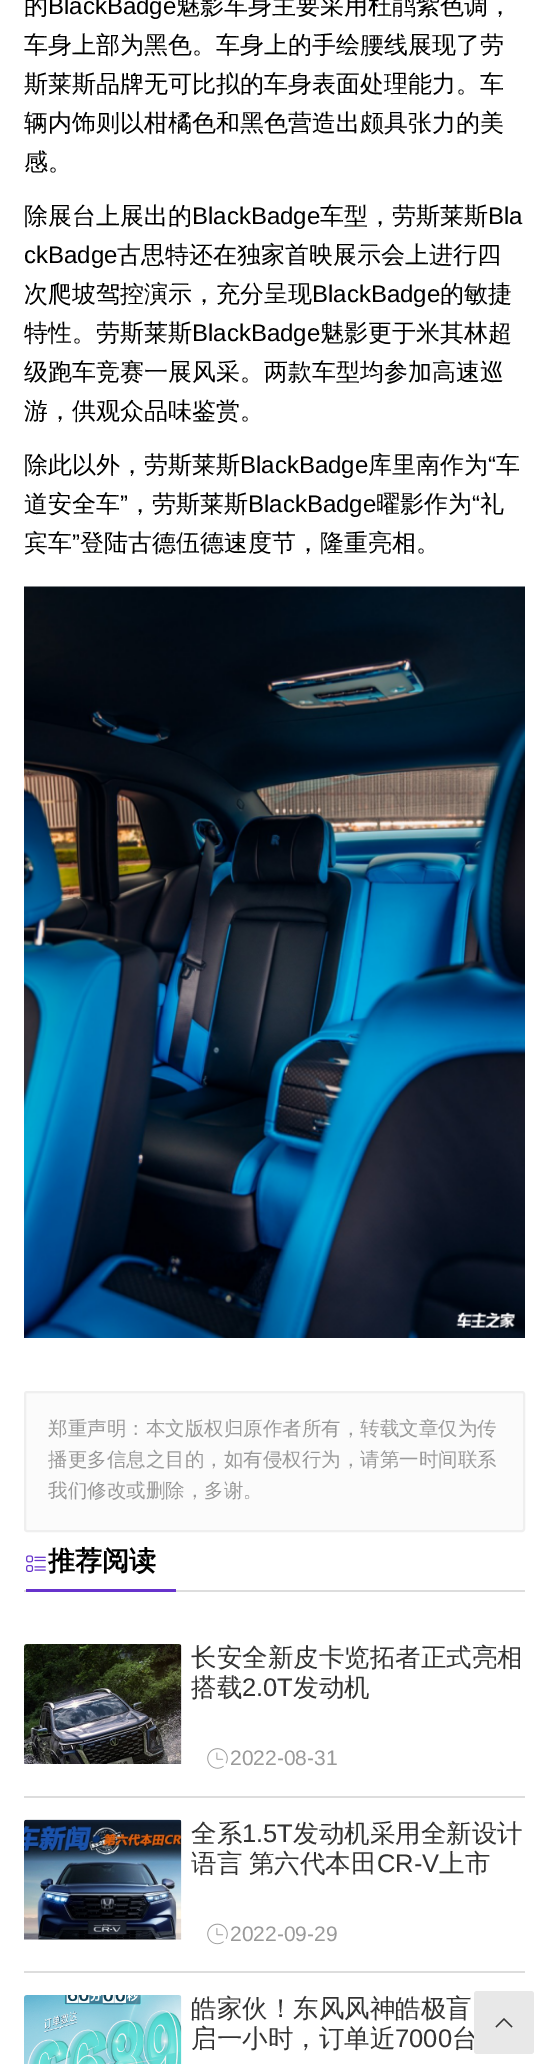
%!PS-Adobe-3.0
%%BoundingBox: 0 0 549 2064
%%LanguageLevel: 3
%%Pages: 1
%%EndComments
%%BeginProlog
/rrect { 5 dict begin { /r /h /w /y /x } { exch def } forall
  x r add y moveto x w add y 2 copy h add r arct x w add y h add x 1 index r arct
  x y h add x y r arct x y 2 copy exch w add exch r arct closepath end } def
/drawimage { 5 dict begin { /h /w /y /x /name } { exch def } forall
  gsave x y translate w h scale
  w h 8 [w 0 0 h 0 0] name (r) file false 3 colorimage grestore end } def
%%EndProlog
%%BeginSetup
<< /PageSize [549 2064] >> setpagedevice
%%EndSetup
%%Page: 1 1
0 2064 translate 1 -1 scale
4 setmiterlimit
1 setgray
0 0 549 2064 rectfill
(images/1.raw) 24 586 501 752 drawimage
0.984 setgray
25 1392 499 139 2 rrect gsave fill grestore
0.937 setgray
2 setlinewidth
stroke
0.867 setgray
24 1590 501 2 rectfill
(images/2.raw) 26 1555 20 17 drawimage
0.404 0.2 0.8 setrgbcolor
26 1589 150 3 rectfill
0.867 setgray
24 1796 501 2 rectfill
(images/3.raw) 24 1644 158 120 drawimage
(images/4.raw) 207 1748 21 21 drawimage
24 1971 501 2 rectfill
(images/5.raw) 24 1819 158 121 drawimage
(images/6.raw) 207 1923 21 22 drawimage
(images/7.raw) 24 1995 158 69 drawimage
/WenQuanYiZenHei-Medium [24 0 0 -24 0 0] selectfont
0 setgray
24 14 moveto (的) show
/LiberationSans-Regular [24 0 0 -24 0 0] selectfont
48 14 moveto (BlackBadge) show
/WenQuanYiZenHei-Medium [24 0 0 -24 0 0] selectfont
176 14 moveto (魅影车身主要采用杜鹃紫色调，) show
24 53 moveto (车身上部为黑色。车身上的手绘腰线展现了劳) show
24 92 moveto (斯莱斯品牌无可比拟的车身表面处理能力。车) show
24 131 moveto (辆内饰则以柑橘色和黑色营造出颇具张力的美) show
24 170 moveto (感。) show
24 224 moveto (除展台上展出的) show
/LiberationSans-Regular [24 0 0 -24 0 0] selectfont
192 224 moveto (BlackBadge) show
/WenQuanYiZenHei-Medium [24 0 0 -24 0 0] selectfont
320 224 moveto (车型，劳斯莱斯) show
/LiberationSans-Regular [24 0 0 -24 0 0] selectfont
488 224 moveto (Bla) show
24 263 moveto (ckBadge) show
/WenQuanYiZenHei-Medium [24 0 0 -24 0 0] selectfont
117 263 moveto (古思特还在独家首映展示会上进行四) show
24 302 moveto (次爬坡驾控演示，充分呈现) show
/LiberationSans-Regular [24 0 0 -24 0 0] selectfont
312 302 moveto (BlackBadge) show
/WenQuanYiZenHei-Medium [24 0 0 -24 0 0] selectfont
440 302 moveto (的敏捷) show
24 341 moveto (特性。劳斯莱斯) show
/LiberationSans-Regular [24 0 0 -24 0 0] selectfont
192 341 moveto (BlackBadge) show
/WenQuanYiZenHei-Medium [24 0 0 -24 0 0] selectfont
320 341 moveto (魅影更于米其林超) show
24 380 moveto (级跑车竞赛一展风采。两款车型均参加高速巡) show
24 419 moveto (游，供观众品味鉴赏。) show
24 473 moveto (除此以外，劳斯莱斯) show
/LiberationSans-Regular [24 0 0 -24 0 0] selectfont
240 473 moveto (BlackBadge) show
/WenQuanYiZenHei-Medium [24 0 0 -24 0 0] selectfont
368 473 moveto (库里南作为) show
/LiberationSans-Regular [24 0 0 -24 0 0] selectfont
488 473 moveto (“) show
/WenQuanYiZenHei-Medium [24 0 0 -24 0 0] selectfont
496 473 moveto (车) show
24 512 moveto (道安全车) show
/LiberationSans-Regular [24 0 0 -24 0 0] selectfont
120 512 moveto (”) show
/WenQuanYiZenHei-Medium [24 0 0 -24 0 0] selectfont
128 512 moveto (，劳斯莱斯) show
/LiberationSans-Regular [24 0 0 -24 0 0] selectfont
248 512 moveto (BlackBadge) show
/WenQuanYiZenHei-Medium [24 0 0 -24 0 0] selectfont
376 512 moveto (曜影作为) show
/LiberationSans-Regular [24 0 0 -24 0 0] selectfont
472 512 moveto (“) show
/WenQuanYiZenHei-Medium [24 0 0 -24 0 0] selectfont
480 512 moveto (礼) show
24 551 moveto (宾车) show
/LiberationSans-Regular [24 0 0 -24 0 0] selectfont
72 551 moveto (”) show
/WenQuanYiZenHei-Medium [24 0 0 -24 0 0] selectfont
80 551 moveto (登陆古德伍德速度节，隆重亮相。) show
/WenQuanYiZenHei-Medium [19.5 0 0 -19.5 0 0] selectfont
0.6 setgray
48 1435 moveto (郑重声明：本文版权归原作者所有，转载文章仅为传) show
48 1466 moveto (播更多信息之目的，如有侵权行为，请第一时间联系) show
48 1497 moveto (我们修改或删除，多谢。) show
/WenQuanYiZenHei-Bold [27 0 0 -27 0 0] selectfont
0 setgray
48 1570 moveto (推荐阅读) show
/WenQuanYiZenHei-Medium [25.5 0 0 -25.5 0 0] selectfont
0.2 setgray
191 1666 moveto (长安全新皮卡览拓者正式亮相) show
191 1696 moveto (搭载) show
/LiberationSans-Regular [25.5 0 0 -25.5 0 0] selectfont
242 1696 moveto (2.0T) show
/WenQuanYiZenHei-Medium [25.5 0 0 -25.5 0 0] selectfont
293 1696 moveto (发动机) show
/LiberationSans-Regular [21 0 0 -21 0 0] selectfont
0.6 setgray
230 1765 moveto (2022-08-31) show
/WenQuanYiZenHei-Medium [25.5 0 0 -25.5 0 0] selectfont
0.2 setgray
191 1842 moveto (全系) show
/LiberationSans-Regular [25.5 0 0 -25.5 0 0] selectfont
242 1842 moveto (1.5T) show
/WenQuanYiZenHei-Medium [25.5 0 0 -25.5 0 0] selectfont
293 1842 moveto (发动机采用全新设计) show
191 1872 moveto -1 0 32 (语言 第六代本田) widthshow
/LiberationSans-Regular [25.5 0 0 -25.5 0 0] selectfont
377 1872 moveto (CR-V) show
/WenQuanYiZenHei-Medium [25.5 0 0 -25.5 0 0] selectfont
439 1872 moveto (上市) show
/LiberationSans-Regular [21 0 0 -21 0 0] selectfont
0.6 setgray
230 1941 moveto (2022-09-29) show
/WenQuanYiZenHei-Medium [25.5 0 0 -25.5 0 0] selectfont
0.2 setgray
191 2017 moveto (皓家伙！东风风神皓极盲) show
191 2047 moveto (启一小时，订单近) show
/LiberationSans-Regular [25.5 0 0 -25.5 0 0] selectfont
395 2047 moveto (7000) show
/WenQuanYiZenHei-Medium [25.5 0 0 -25.5 0 0] selectfont
452 2047 moveto (台) show
0.91 setgray
474 1991 60 63 3 rrect fill
0.2 setgray
newpath 511.5 2027.5 moveto 512.5 2026.5 lineto 504 2018 lineto 495.5 2026.5 lineto 496.5 2027.5 lineto 504 2020 lineto closepath fill
showpage
%%EOF
